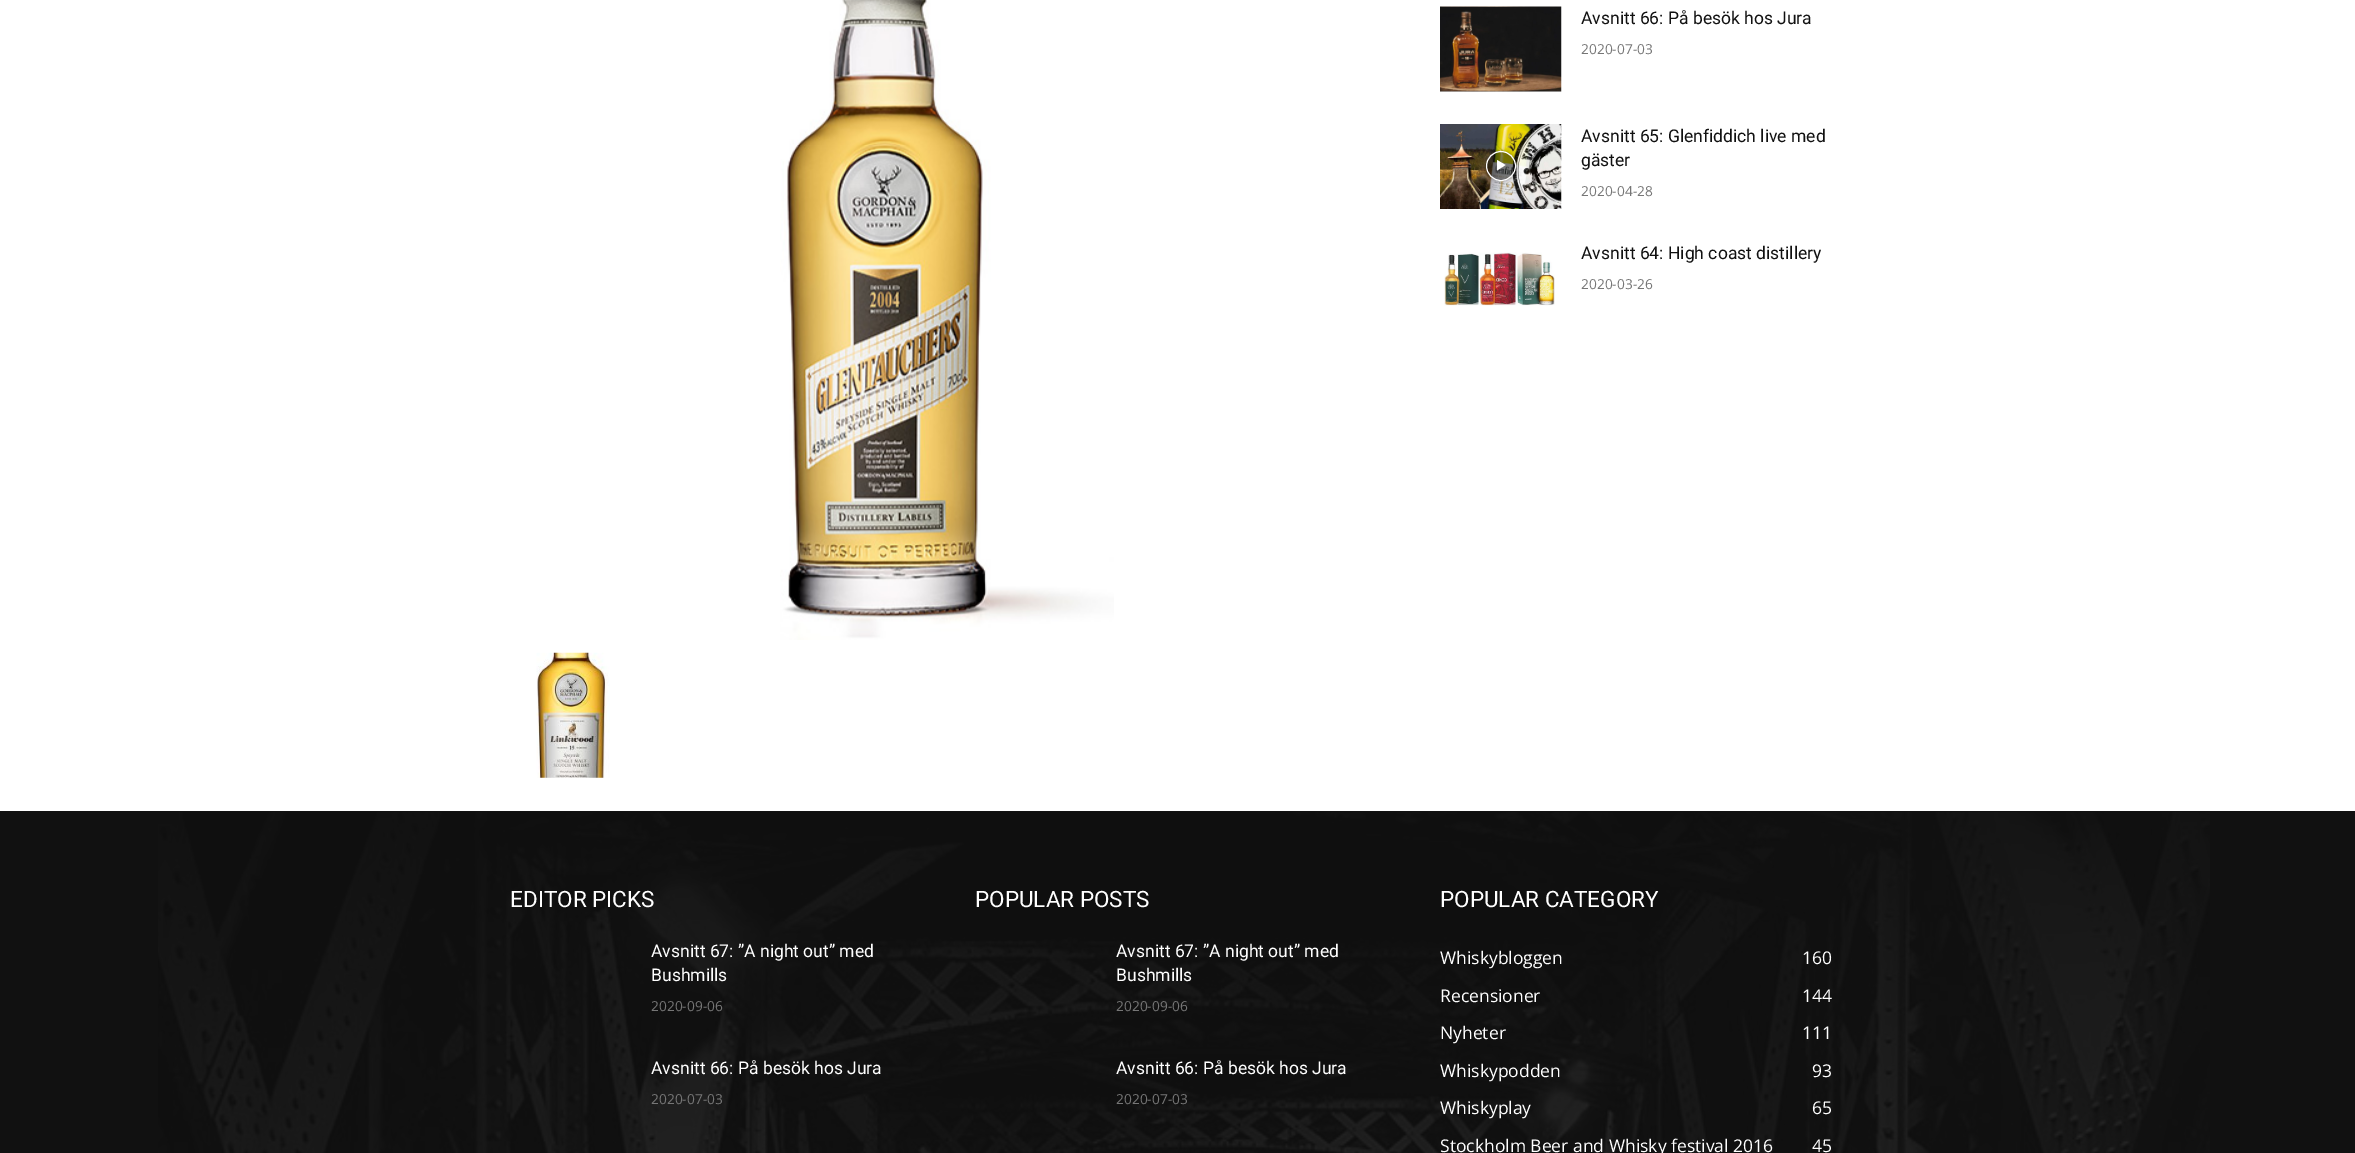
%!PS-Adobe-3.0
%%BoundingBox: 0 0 2355 1153
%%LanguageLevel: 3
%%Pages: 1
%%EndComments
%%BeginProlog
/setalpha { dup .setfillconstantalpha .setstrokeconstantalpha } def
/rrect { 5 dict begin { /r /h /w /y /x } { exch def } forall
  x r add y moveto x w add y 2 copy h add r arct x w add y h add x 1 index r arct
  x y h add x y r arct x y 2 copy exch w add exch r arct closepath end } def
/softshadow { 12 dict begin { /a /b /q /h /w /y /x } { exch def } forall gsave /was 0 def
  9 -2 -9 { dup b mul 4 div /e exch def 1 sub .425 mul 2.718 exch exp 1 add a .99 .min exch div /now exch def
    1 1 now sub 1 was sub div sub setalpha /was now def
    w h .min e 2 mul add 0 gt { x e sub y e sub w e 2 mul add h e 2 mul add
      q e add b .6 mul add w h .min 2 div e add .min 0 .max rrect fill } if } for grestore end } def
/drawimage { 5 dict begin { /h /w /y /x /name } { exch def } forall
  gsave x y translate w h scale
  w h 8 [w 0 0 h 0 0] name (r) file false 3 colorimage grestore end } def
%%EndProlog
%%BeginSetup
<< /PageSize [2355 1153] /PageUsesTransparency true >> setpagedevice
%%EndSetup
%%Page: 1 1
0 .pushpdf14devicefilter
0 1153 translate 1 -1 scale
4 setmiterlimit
1 setgray
0 0 2355 1153 rectfill
(images/1.raw) 780 0 334 640 drawimage
(images/2.raw) 536 652 74 126 drawimage
(images/3.raw) 1440 6 122 86 drawimage
(images/4.raw) 1440 124 122 85 drawimage
gsave
newpath 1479 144 moveto 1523 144 lineto 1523 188 lineto 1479 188 lineto closepath 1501 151 moveto 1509.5 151 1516 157.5 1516 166 curveto 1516 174.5 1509.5 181 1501 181 curveto 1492.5 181 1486 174.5 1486 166 curveto 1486 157.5 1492.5 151 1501 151 curveto closepath eoclip newpath
0 setgray
1486 151 30 30 15 2 0.4 softshadow
grestore
0.48 setalpha
0 setgray
newpath 1501 166 14.5 0 360 arc closepath fill
1 setalpha
1 setgray
newpath 1501 166 14.5 0 360 arc closepath stroke
newpath 1497 160 moveto 1497 170.5 lineto 1505.5 165 lineto closepath fill
(images/5.raw) 1444 252 111 54 drawimage
0.067 setgray
0 811 2355 342 rectfill
(images/6.raw) 158 812 2052 341 drawimage
/Roboto-Regular [17.5 0 0 -17.5 0 0] selectfont
1581 24 moveto (Avsnitt 66: På besök hos Jura) show
/OpenSans-Regular [13.75 0 0 -13.75 0 0] selectfont
0.463 setgray
1581 54 moveto (2020-07-03) show
/Roboto-Regular [17.5 0 0 -17.5 0 0] selectfont
0.067 setgray
1581 142 moveto (Avsnitt 65: Glenfiddich live med) show
1581 166 moveto (gäster) show
/OpenSans-Regular [13.75 0 0 -13.75 0 0] selectfont
0.463 setgray
1581 196 moveto (2020-04-28) show
/Roboto-Regular [17.5 0 0 -17.5 0 0] selectfont
0.067 setgray
1581 259 moveto (Avsnitt 64: High coast distillery) show
/OpenSans-Regular [13.75 0 0 -13.75 0 0] selectfont
0.463 setgray
1581 289 moveto (2020-03-26) show
/Roboto-Regular [22.5 0 0 -22.5 0 0] selectfont
1 setgray
510 907 moveto (EDITOR PICKS) show
/Roboto-Regular [17.5 0 0 -17.5 0 0] selectfont
651 957 moveto (Avsnitt 67: ”A night out” med) show
651 981 moveto (Bushmills) show
/OpenSans-Regular [13.75 0 0 -13.75 0 0] selectfont
0.463 setgray
651 1011 moveto (2020-09-06) show
/Roboto-Regular [17.5 0 0 -17.5 0 0] selectfont
1 setgray
651 1074 moveto (Avsnitt 66: På besök hos Jura) show
/OpenSans-Regular [13.75 0 0 -13.75 0 0] selectfont
0.463 setgray
651 1104 moveto (2020-07-03) show
/Roboto-Regular [22.5 0 0 -22.5 0 0] selectfont
1 setgray
975 907 moveto (POPULAR POSTS) show
/Roboto-Regular [17.5 0 0 -17.5 0 0] selectfont
1116 957 moveto (Avsnitt 67: ”A night out” med) show
1116 981 moveto (Bushmills) show
/OpenSans-Regular [13.75 0 0 -13.75 0 0] selectfont
0.463 setgray
1116 1011 moveto (2020-09-06) show
/Roboto-Regular [17.5 0 0 -17.5 0 0] selectfont
1 setgray
1116 1074 moveto (Avsnitt 66: På besök hos Jura) show
/OpenSans-Regular [13.75 0 0 -13.75 0 0] selectfont
0.463 setgray
1116 1104 moveto (2020-07-03) show
/Roboto-Regular [22.5 0 0 -22.5 0 0] selectfont
1 setgray
1440 907 moveto (POPULAR CATEGORY) show
/OpenSans-Regular [17.5 0 0 -17.5 0 0] selectfont
1440 964 moveto (Whiskybloggen) show
1802 964 moveto (160) show
1440 1002 moveto (Recensioner) show
1802 1002 moveto (144) show
1440 1039 moveto (Nyheter) show
1802 1039 moveto (111) show
1440 1077 moveto (Whiskypodden) show
1812 1077 moveto (93) show
1440 1114 moveto (Whiskyplay) show
1812 1114 moveto (65) show
1440 1152 moveto (Stockholm Beer and Whisky festival 2016) show
1812 1152 moveto (45) show
.poppdf14devicefilter showpage
%%EOF
